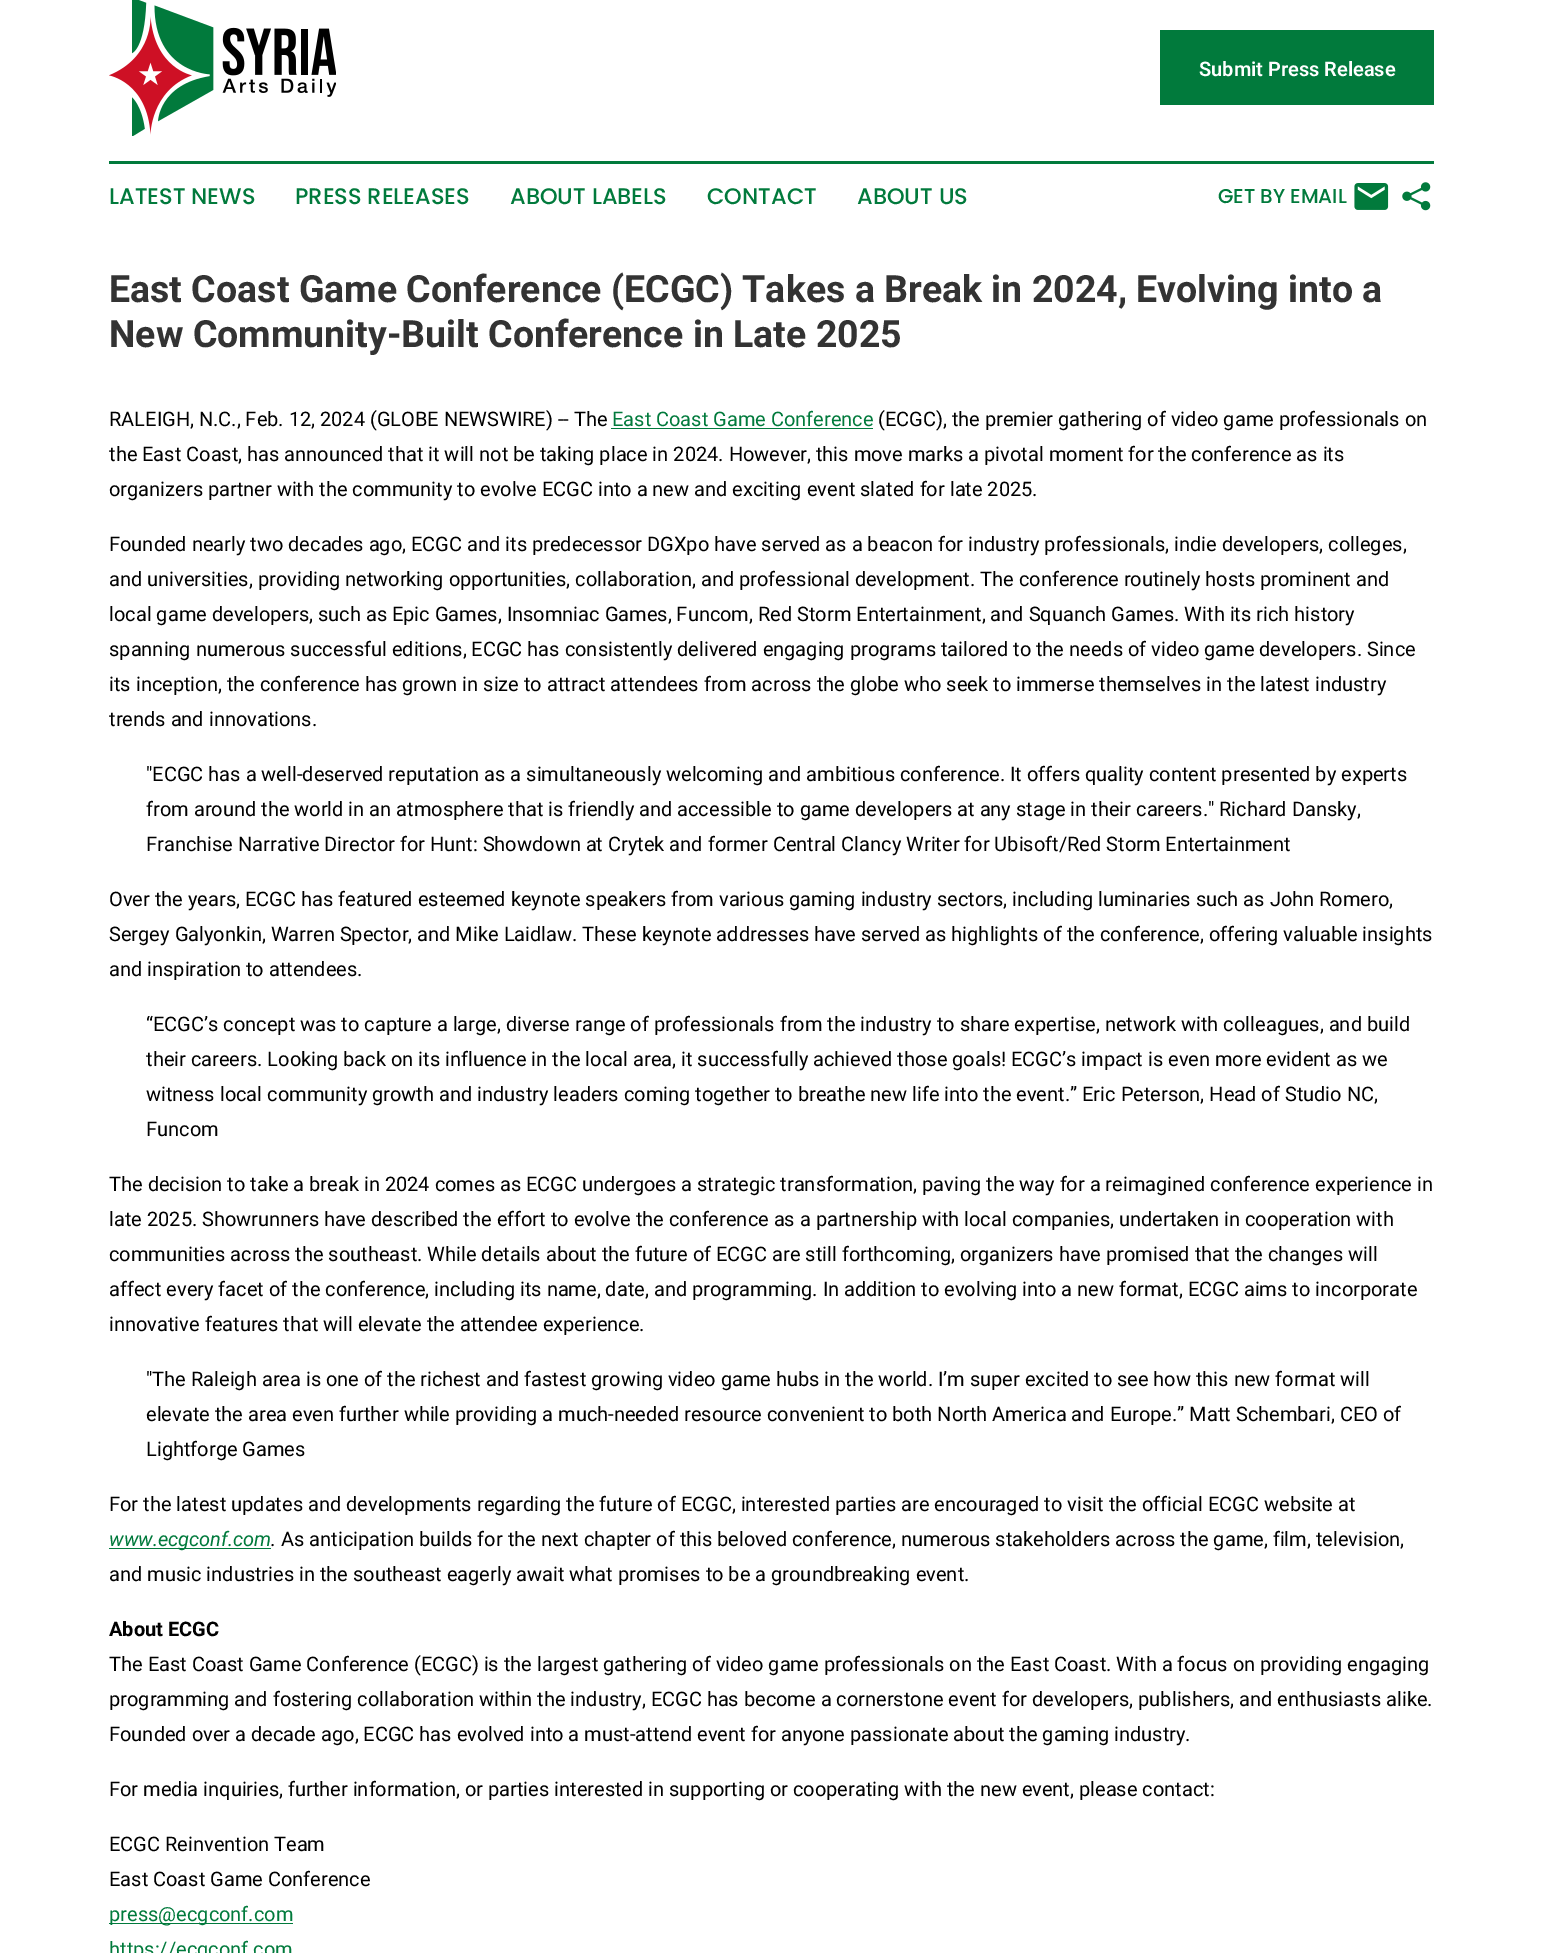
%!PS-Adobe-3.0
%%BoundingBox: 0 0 1542 1953
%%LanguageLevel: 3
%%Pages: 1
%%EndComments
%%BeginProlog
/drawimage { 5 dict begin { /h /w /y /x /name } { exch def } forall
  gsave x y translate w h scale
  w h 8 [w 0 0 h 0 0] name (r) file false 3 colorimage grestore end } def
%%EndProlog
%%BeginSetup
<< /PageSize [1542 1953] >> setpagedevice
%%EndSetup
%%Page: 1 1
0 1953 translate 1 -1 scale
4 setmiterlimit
1 setgray
0 0 1542 1953 rectfill
(images/1.raw) 109 0 227 136 drawimage
0.004 0.478 0.235 setrgbcolor
1160 30 274 75 rectfill
109 161 1325 3 rectfill
(images/2.raw) 1354 183 35 27 drawimage
(images/3.raw) 1402 182 29 29 drawimage
611 428 262 1 rectfill
109 1548 162 1 rectfill
109 1923 184 1 rectfill
/Roboto-SemiBold [20 0 0 -20 0 0] selectfont
1 setgray
1199 76 moveto (Submit Press Release) show
/Poppins-Medium [22.5 0 0 -22.5 0 0] selectfont
0.004 0.478 0.235 setrgbcolor
109 204 moveto (LATEST NEWS) show
295 204 moveto (PRESS RELEASES) show
510 204 moveto (ABOUT LABELS) show
707 204 moveto (CONTACT) show
857 204 moveto (ABOUT US) show
/Poppins-Medium [20 0 0 -20 0 0] selectfont
1218 203 moveto (GET BY EMAIL) show
/Roboto-Bold [37.5 0 0 -37.5 0 0] selectfont
0.2 setgray
109 302 moveto (East Coast Game Conference \(ECGC\) Takes a Break in 2024, Evolving into a) show
109 347 moveto (New Community-Built Conference in Late 2025) show
/Roboto-Regular [20 0 0 -20 0 0] selectfont
0 setgray
109 426 moveto (RALEIGH, N.C., Feb. 12, 2024 \(GLOBE NEWSWIRE\) -- The) show
0.004 0.478 0.235 setrgbcolor
612 426 moveto (East Coast Game Conference) show
0 setgray
878 426 moveto (\(ECGC\), the premier gathering of video game professionals on) show
109 461 moveto (the East Coast, has announced that it will not be taking place in 2024. However, this move marks a pivotal moment for the conference as its) show
109 496 moveto (organizers partner with the community to evolve ECGC into a new and exciting event slated for late 2025.) show
109 551 moveto (Founded nearly two decades ago, ECGC and its predecessor DGXpo have served as a beacon for industry professionals, indie developers, colleges,) show
109 586 moveto (and universities, providing networking opportunities, collaboration, and professional development. The conference routinely hosts prominent and) show
109 621 moveto (local game developers, such as Epic Games, Insomniac Games, Funcom, Red Storm Entertainment, and Squanch Games. With its rich history) show
109 656 moveto (spanning numerous successful editions, ECGC has consistently delivered engaging programs tailored to the needs of video game developers. Since) show
109 691 moveto (its inception, the conference has grown in size to attract attendees from across the globe who seek to immerse themselves in the latest industry) show
109 726 moveto (trends and innovations.) show
146 781 moveto ("ECGC has a well-deserved reputation as a simultaneously welcoming and ambitious conference. It offers quality content presented by experts) show
146 816 moveto (from around the world in an atmosphere that is friendly and accessible to game developers at any stage in their careers." Richard Dansky,) show
146 851 moveto (Franchise Narrative Director for Hunt: Showdown at Crytek and former Central Clancy Writer for Ubisoft/Red Storm Entertainment) show
109 906 moveto (Over the years, ECGC has featured esteemed keynote speakers from various gaming industry sectors, including luminaries such as John Romero,) show
109 941 moveto (Sergey Galyonkin, Warren Spector, and Mike Laidlaw. These keynote addresses have served as highlights of the conference, offering valuable insights) show
109 976 moveto (and inspiration to attendees.) show
146 1031 moveto (“ECGC’s concept was to capture a large, diverse range of professionals from the industry to share expertise, network with colleagues, and build) show
146 1066 moveto (their careers. Looking back on its influence in the local area, it successfully achieved those goals! ECGC’s impact is even more evident as we) show
146 1101 moveto (witness local community growth and industry leaders coming together to breathe new life into the event.” Eric Peterson, Head of Studio NC,) show
146 1136 moveto (Funcom) show
109 1191 moveto (The decision to take a break in 2024 comes as ECGC undergoes a strategic transformation, paving the way for a reimagined conference experience in) show
109 1226 moveto (late 2025. Showrunners have described the effort to evolve the conference as a partnership with local companies, undertaken in cooperation with) show
109 1261 moveto (communities across the southeast. While details about the future of ECGC are still forthcoming, organizers have promised that the changes will) show
109 1296 moveto (affect every facet of the conference, including its name, date, and programming. In addition to evolving into a new format, ECGC aims to incorporate) show
109 1331 moveto (innovative features that will elevate the attendee experience.) show
146 1386 moveto ("The Raleigh area is one of the richest and fastest growing video game hubs in the world. I’m super excited to see how this new format will) show
146 1421 moveto (elevate the area even further while providing a much-needed resource convenient to both North America and Europe.” Matt Schembari, CEO of) show
146 1456 moveto (Lightforge Games) show
109 1511 moveto (For the latest updates and developments regarding the future of ECGC, interested parties are encouraged to visit the official ECGC website at) show
/Roboto-Italic [20 0 0 -20 0 0] selectfont
0.004 0.478 0.235 setrgbcolor
109 1546 moveto (www.ecgconf.com) show
0 setgray
271 1546 moveto (.) show
/Roboto-Regular [20 0 0 -20 0 0] selectfont
281 1546 moveto (As anticipation builds for the next chapter of this beloved conference, numerous stakeholders across the game, film, television,) show
109 1581 moveto (and music industries in the southeast eagerly await what promises to be a groundbreaking event.) show
/Roboto-Bold [20 0 0 -20 0 0] selectfont
109 1636 moveto (About ECGC) show
/Roboto-Regular [20 0 0 -20 0 0] selectfont
109 1671 moveto (The East Coast Game Conference \(ECGC\) is the largest gathering of video game professionals on the East Coast. With a focus on providing engaging) show
109 1706 moveto (programming and fostering collaboration within the industry, ECGC has become a cornerstone event for developers, publishers, and enthusiasts alike.) show
109 1741 moveto (Founded over a decade ago, ECGC has evolved into a must-attend event for anyone passionate about the gaming industry.) show
109 1796 moveto (For media inquiries, further information, or parties interested in supporting or cooperating with the new event, please contact:) show
109 1851 moveto (ECGC Reinvention Team) show
109 1886 moveto (East Coast Game Conference) show
0.004 0.478 0.235 setrgbcolor
109 1921 moveto (press@ecgconf.com) show
109 1956 moveto (https://ecgconf.com) show
showpage
%%EOF
